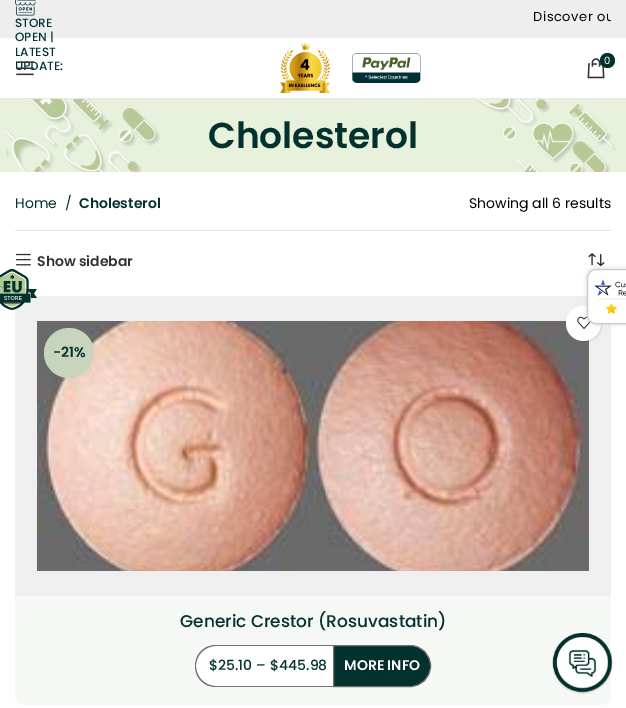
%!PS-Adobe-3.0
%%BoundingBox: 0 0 626 708
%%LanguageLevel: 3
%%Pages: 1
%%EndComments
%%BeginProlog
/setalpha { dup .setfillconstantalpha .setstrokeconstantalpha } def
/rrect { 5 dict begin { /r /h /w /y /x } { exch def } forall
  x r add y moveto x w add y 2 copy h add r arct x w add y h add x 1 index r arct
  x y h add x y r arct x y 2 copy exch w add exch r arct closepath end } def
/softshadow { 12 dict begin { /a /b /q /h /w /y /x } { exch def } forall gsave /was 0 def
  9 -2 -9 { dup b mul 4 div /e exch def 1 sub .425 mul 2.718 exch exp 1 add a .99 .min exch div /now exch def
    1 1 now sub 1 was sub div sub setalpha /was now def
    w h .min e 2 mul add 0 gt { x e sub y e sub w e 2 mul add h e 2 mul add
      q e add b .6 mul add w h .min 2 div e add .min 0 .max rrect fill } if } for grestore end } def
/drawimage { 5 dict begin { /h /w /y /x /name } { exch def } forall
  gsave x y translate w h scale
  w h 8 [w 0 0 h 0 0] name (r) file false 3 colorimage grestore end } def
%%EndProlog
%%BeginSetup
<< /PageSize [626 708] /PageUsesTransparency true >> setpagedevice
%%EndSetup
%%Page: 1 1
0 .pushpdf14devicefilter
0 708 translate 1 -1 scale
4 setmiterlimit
1 setgray
0 0 626 708 rectfill
0.933 setgray
0 0 626 38 rectfill
(images/1.raw) 15 0 21 16 drawimage
0.91 setgray
0 98 626 1 rectfill
(images/2.raw) 280 43 50 50 drawimage
(images/3.raw) 352 53 69 30 drawimage
(images/4.raw) 587 58 18 21 drawimage
0.008 0.192 0.18 setrgbcolor
newpath 607.5 60.5 7.5 0 360 arc closepath fill
0.906 0.945 0.863 setrgbcolor
0 99 626 73 rectfill
(images/6.raw) 6 99 610 73 drawimage
0.894 setgray
15 230 596 1 rectfill
(images/7.raw) 16 253 15 13 drawimage
(images/8.raw) 588 253 17 14 drawimage
0.965 0.973 0.961 setrgbcolor
15 296 596 409 10 rrect fill
0.937 setgray
15 296 596 300 rectfill
(images/10.raw) 37 321 552 250 drawimage
0 setgray
567 307 35 35 17.5 0.5 0.1 softshadow
1 setgray
newpath 583.5 323.5 17.5 0 360 arc closepath fill
(images/9.raw) 577 316 14 13 drawimage
0.784 0.831 0.737 setrgbcolor
newpath 69 353 25 0 360 arc closepath fill
1 setgray
newpath 216 645 moveto 333 645 lineto 333 687 lineto 216 687 lineto 204.5 687 195 677.5 195 666 curveto 195 654.5 204.5 645 216 645 curveto closepath fill
0.439 setgray
newpath 216 645 moveto 333 645 lineto 333 687 lineto 216 687 lineto 204 687 195 678 195 666 curveto 195 654 204 645 216 645 curveto closepath 216 646 moveto 333 646 lineto 333 686 lineto 216 686 lineto 205 686 196 677 196 666 curveto 196 655 205 646 216 646 curveto closepath eofill
0.008 0.192 0.18 setrgbcolor
newpath 333.5 645.5 moveto 410 645.5 lineto 421.5 645.5 430.5 654.5 430.5 666 curveto 430.5 677.5 421.5 686.5 410 686.5 curveto 333.5 686.5 lineto closepath gsave fill grestore
0.439 setgray
stroke
0.8 setgray
587 269 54 55 9 2 1 softshadow
1 setgray
newpath 596 269.5 moveto 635.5 269.5 lineto 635.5 323.5 lineto 596 323.5 lineto 591.5 323.5 587.5 319.5 587.5 315 curveto 587.5 278 lineto 587.5 273.5 591.5 269.5 596 269.5 curveto closepath gsave fill grestore
0.8 setgray
stroke
(images/11.raw) 594 279 32 35 drawimage
(images/12.raw) 0 269 37 41 drawimage
(images/13.raw) 552 633 61 61 drawimage
gsave
93 4 518 26 rectclip
/Poppins-Regular [13 0 0 -13 0 0] selectfont
0 setgray
533 21 moveto 0.6 0 (Discover ou) ashow
grestore
/Poppins-Medium [12 0 0 -12 0 0] selectfont
0 0.192 0.212 setrgbcolor
15 27 moveto (STORE) show
15 41 moveto (OPEN |) show
15 56 moveto (LATEST) show
15 70 moveto (UPDATE:) show
/Poppins-Regular [10 0 0 -10 0 0] selectfont
1 setgray
604 64 moveto (0) show
(images/5.raw) 16 61 18 15 drawimage
/Poppins-SemiBold [36 0 0 -36 0 0] selectfont
0.008 0.192 0.18 setrgbcolor
208 148 moveto (Cholesterol) show
/Poppins-Regular [14 0 0 -14 0 0] selectfont
15 208 moveto (Home) show
65 208 moveto (/) show
/Poppins-SemiBold [14 0 0 -14 0 0] selectfont
79 208 moveto (Cholesterol) show
/Poppins-Regular [14 0 0 -14 0 0] selectfont
0 setgray
469 208 moveto (Showing all 6 results) show
/Poppins-SemiBold [14 0 0 -14 0 0] selectfont
0.2 setgray
37 266 moveto (Show sidebar) show
0.008 0.192 0.18 setrgbcolor
53 357 moveto (-21%) show
/Poppins-Medium [17 0 0 -17 0 0] selectfont
180 627 moveto (Generic Crestor \(Rosuvastatin\)) show
/Poppins-Medium [14 0 0 -14 0 0] selectfont
209 670 moveto ($25.10) show
/Poppins-Regular [14 0 0 -14 0 0] selectfont
256 670 moveto (–) show
/Poppins-Medium [14 0 0 -14 0 0] selectfont
270 670 moveto ($445.98) show
/Poppins-SemiBold [14 0 0 -14 0 0] selectfont
1 setgray
344 670 moveto (MORE INFO) show
.poppdf14devicefilter showpage
%%EOF
